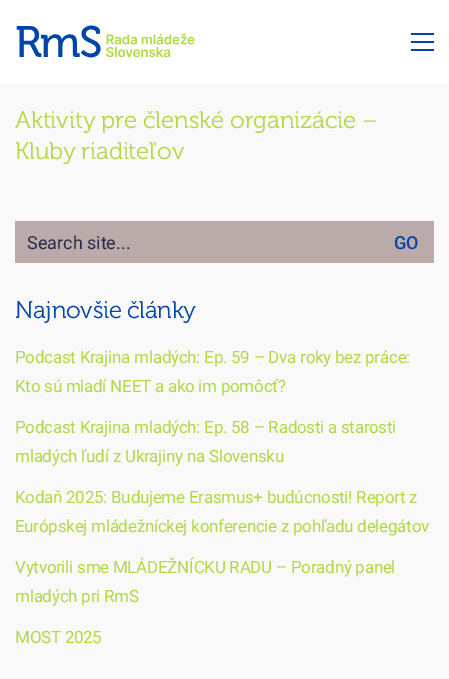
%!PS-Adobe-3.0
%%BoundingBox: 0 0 449 679
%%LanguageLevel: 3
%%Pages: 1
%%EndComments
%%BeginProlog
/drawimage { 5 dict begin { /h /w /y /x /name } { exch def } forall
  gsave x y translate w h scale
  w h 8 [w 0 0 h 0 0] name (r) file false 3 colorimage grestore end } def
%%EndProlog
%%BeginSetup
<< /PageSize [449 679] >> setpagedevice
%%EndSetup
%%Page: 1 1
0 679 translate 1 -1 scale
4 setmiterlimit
0.976 setgray
0 0 449 679 rectfill
1 setgray
0 0 449 84 rectfill
(images/1.raw) 16 25 179 33 drawimage
0 0.271 0.667 setrgbcolor
411 33 23 2 rectfill
411 41 23 2 rectfill
411 49 23 2 rectfill
0.729 0.667 0.667 setrgbcolor
15 221 419 42 rectfill
/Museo-Light [24 0 0 -24 0 0] selectfont
0.694 0.847 0.271 setrgbcolor
15 128 moveto -0.5 0 32 -0.1 0 (Aktivity pre členské organizácie –) awidthshow
15 159 moveto -1 0 32 -0.1 0 (Kluby riaditeľov) awidthshow
/Roboto-Regular [18 0 0 -18 0 0] selectfont
0.157 0.176 0.294 setrgbcolor
27 249 moveto (Search site...) show
/Roboto-Medium [18 0 0 -18 0 0] selectfont
0 0.271 0.667 setrgbcolor
394 249 moveto (GO) show
/Museo-Light [24 0 0 -24 0 0] selectfont
15 318 moveto -1 0 32 -0.25 0 (Najnovšie články) awidthshow
/Roboto-Regular [17 0 0 -17 0 0] selectfont
0.694 0.847 0.271 setrgbcolor
15 363 moveto -0.27 0 (Podcast Krajina mladých: Ep. 59 – Dva roky bez práce:) ashow
15 392 moveto -0.27 0 (Kto sú mladí NEET a ako im pomôcť?) ashow
15 433 moveto -0.27 0 (Podcast Krajina mladých: Ep. 58 – Radosti a starosti) ashow
15 462 moveto -0.27 0 (mladých ľudí z Ukrajiny na Slovensku) ashow
15 503 moveto -0.27 0 (Kodaň 2025: Budujeme Erasmus+ budúcnosti! Report z) ashow
15 532 moveto -0.27 0 (Európskej mládežníckej konferencie z pohľadu delegátov) ashow
15 573 moveto -0.27 0 (Vytvorili sme MLÁDEŽNÍCKU RADU – Poradný panel) ashow
15 602 moveto -0.27 0 (mladých pri RmS) ashow
15 643 moveto -0.27 0 (MOST 2025) ashow
showpage
%%EOF
